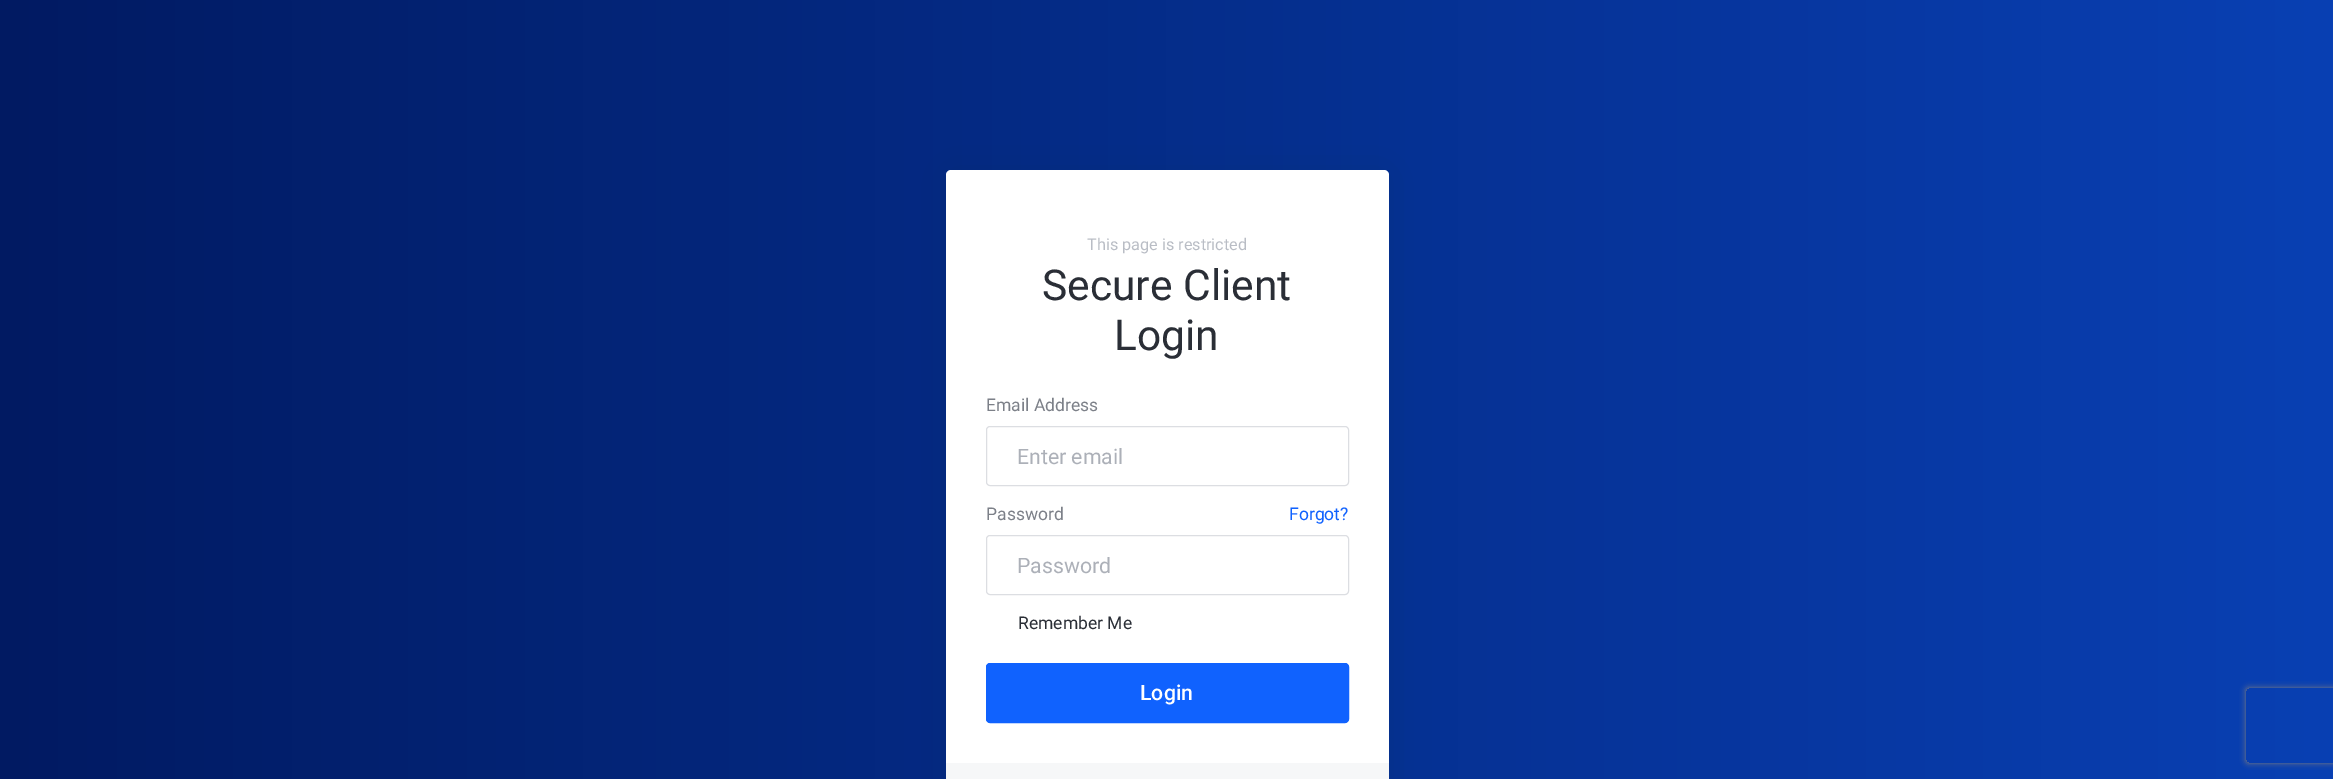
%!PS-Adobe-3.0
%%BoundingBox: 0 0 2333 779
%%LanguageLevel: 3
%%Pages: 1
%%EndComments
%%BeginProlog
/setalpha { dup .setfillconstantalpha .setstrokeconstantalpha } def
/rrect { 5 dict begin { /r /h /w /y /x } { exch def } forall
  x r add y moveto x w add y 2 copy h add r arct x w add y h add x 1 index r arct
  x y h add x y r arct x y 2 copy exch w add exch r arct closepath end } def
/softshadow { 12 dict begin { /a /b /q /h /w /y /x } { exch def } forall gsave /was 0 def
  9 -2 -9 { dup b mul 4 div /e exch def 1 sub .425 mul 2.718 exch exp 1 add a .99 .min exch div /now exch def
    1 1 now sub 1 was sub div sub setalpha /was now def
    w h .min e 2 mul add 0 gt { x e sub y e sub w e 2 mul add h e 2 mul add
      q e add b .6 mul add w h .min 2 div e add .min 0 .max rrect fill } if } for grestore end } def
%%EndProlog
%%BeginSetup
<< /PageSize [2333 779] /PageUsesTransparency true >> setpagedevice
%%EndSetup
%%Page: 1 1
0 .pushpdf14devicefilter
0 779 translate 1 -1 scale
4 setmiterlimit
1 setgray
0 0 2333 779 rectfill
gsave newpath 0 0 moveto 2333 0 lineto 2333 779 lineto 0 779 lineto closepath clip newpath
<< /ShadingType 2 /ColorSpace /DeviceRGB /Coords [0 484 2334 484] /Extend [true true] /Function << /FunctionType 2 /Domain [0 1] /C0 [0.004 0.102 0.384] /C1 [0.035 0.251 0.702] /N 1 >> >> shfill grestore
0.075 0.102 0.173 setrgbcolor
946 170 443 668 5 20 0.1 softshadow
1 setgray
946 170 443 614 5 rrect fill
0.863 0.871 0.886 setrgbcolor
986.5 426.5 362 59 3.5 rrect stroke
986.5 535.5 362 59 3.5 rrect stroke
0.063 0.384 0.996 setrgbcolor
986.5 663.5 362 59 3.5 rrect gsave fill grestore
stroke
gsave
newpath 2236 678 moveto 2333 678 lineto 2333 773 lineto 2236 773 lineto closepath 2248.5 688 moveto 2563.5 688 lineto 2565 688 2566 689 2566 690.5 curveto 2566 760.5 lineto 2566 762 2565 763 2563.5 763 curveto 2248.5 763 lineto 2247 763 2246 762 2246 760.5 curveto 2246 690.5 lineto 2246 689 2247 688 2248.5 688 curveto closepath eoclip newpath
0.502 setgray
2246 688 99 75 2.5 3 1 softshadow
grestore
0.965 0.969 0.973 setrgbcolor
946 763 443 16 rectfill
/Roboto-Regular [16.25 0 0 -16.25 0 0] selectfont
0.725 0.741 0.773 setrgbcolor
1087 250 moveto (This page is restricted) show
/Roboto-Regular [42.5 0 0 -42.5 0 0] selectfont
0.165 0.18 0.212 setrgbcolor
1042 300 moveto (Secure Client) show
1114 350 moveto (Login) show
/Roboto-Regular [17.5 0 0 -17.5 0 0] selectfont
0.486 0.502 0.533 setrgbcolor
986 411 moveto (Email Address) show
/Roboto-Regular [21.25 0 0 -21.25 0 0] selectfont
0.675 0.69 0.722 setrgbcolor
1017 464 moveto (Enter email) show
/Roboto-Regular [17.5 0 0 -17.5 0 0] selectfont
0.486 0.502 0.533 setrgbcolor
986 520 moveto (Password) show
0.063 0.384 0.996 setrgbcolor
1289 520 moveto (Forgot?) show
/Roboto-Regular [21.25 0 0 -21.25 0 0] selectfont
0.675 0.69 0.722 setrgbcolor
1017 573 moveto (Password) show
/Roboto-Regular [17.5 0 0 -17.5 0 0] selectfont
0.165 0.18 0.212 setrgbcolor
1018 629 moveto (Remember Me) show
/Roboto-Medium [21.25 0 0 -21.25 0 0] selectfont
1 setgray
1140 700 moveto (Login) show
.poppdf14devicefilter showpage
%%EOF
